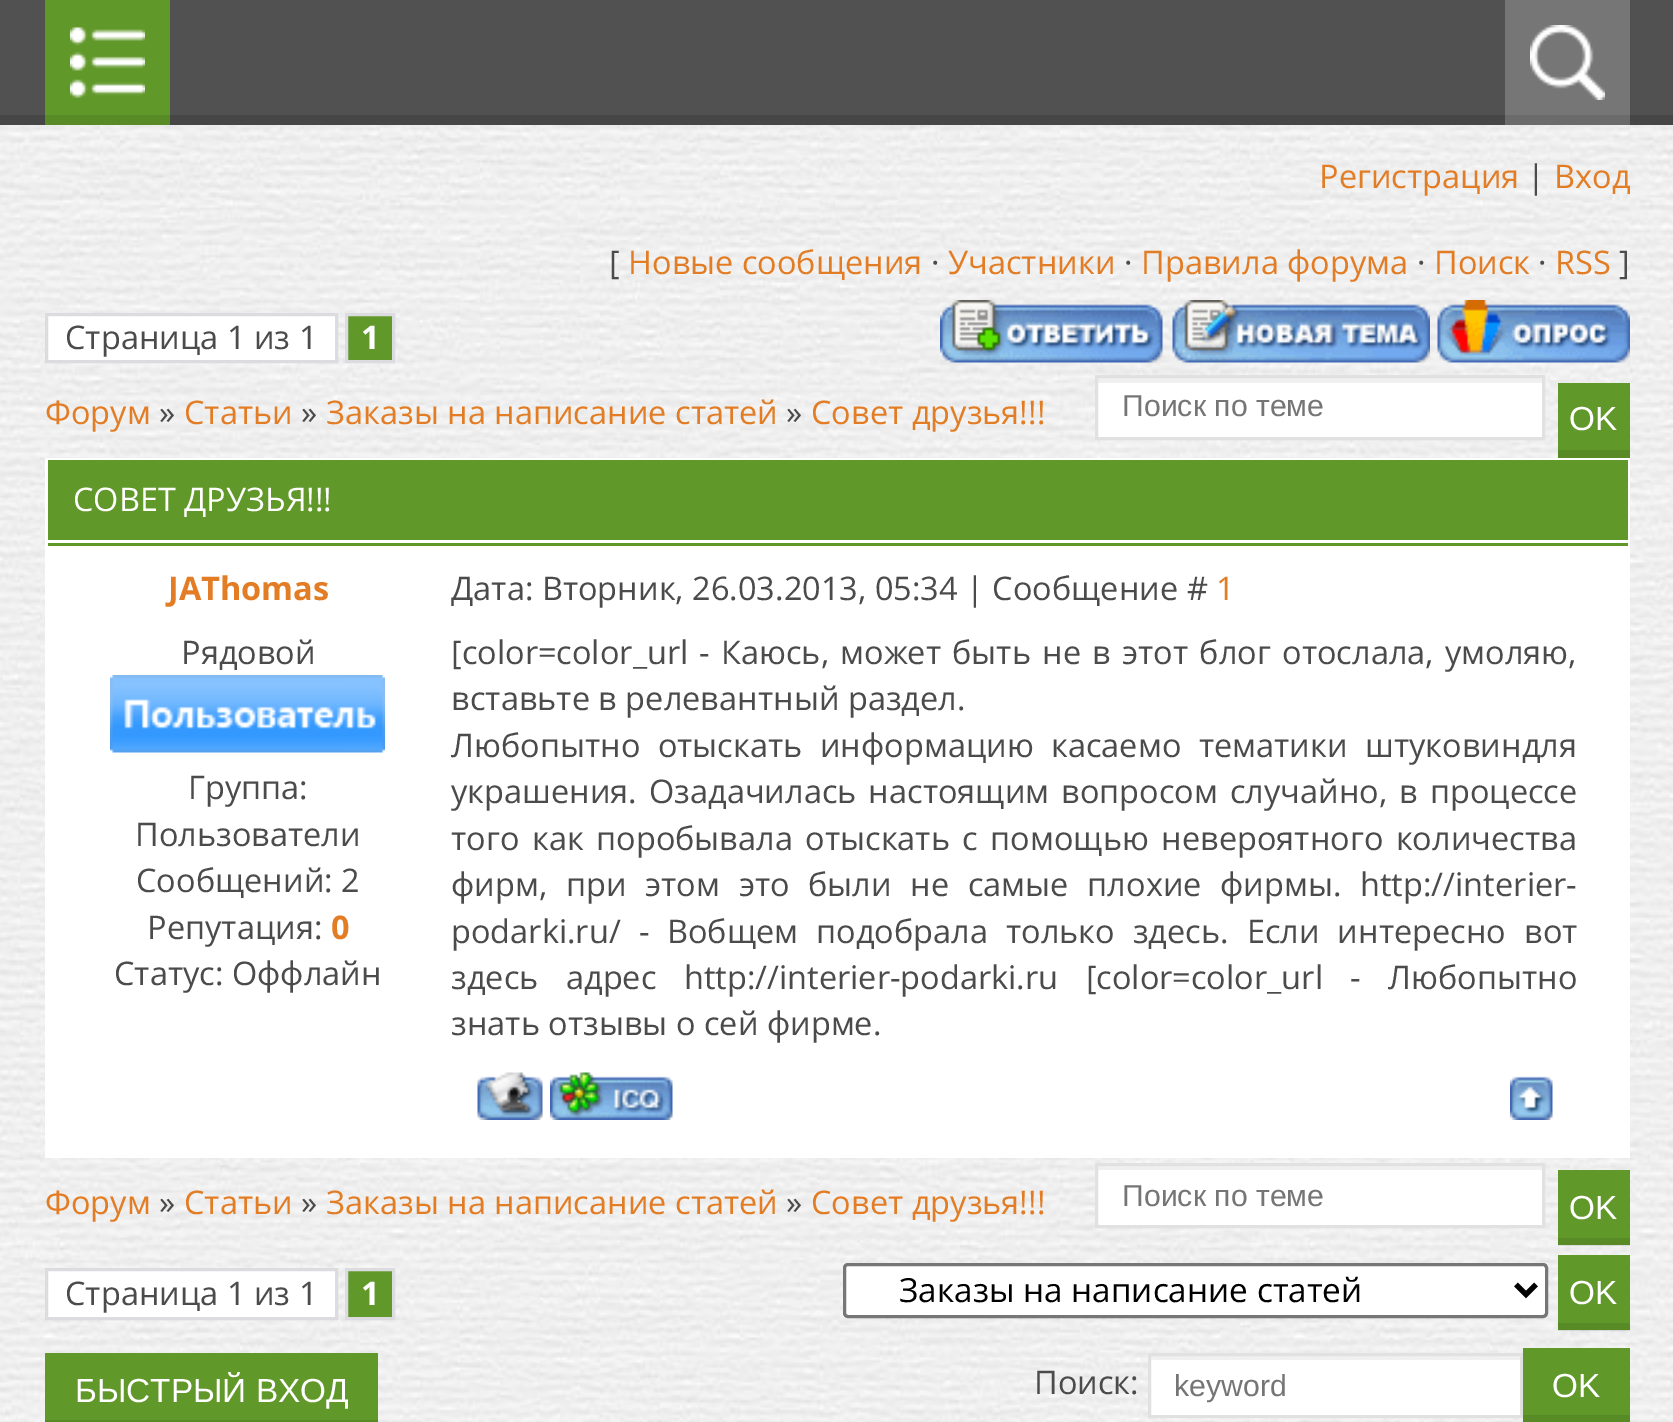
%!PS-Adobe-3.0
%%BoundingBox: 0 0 1673 1422
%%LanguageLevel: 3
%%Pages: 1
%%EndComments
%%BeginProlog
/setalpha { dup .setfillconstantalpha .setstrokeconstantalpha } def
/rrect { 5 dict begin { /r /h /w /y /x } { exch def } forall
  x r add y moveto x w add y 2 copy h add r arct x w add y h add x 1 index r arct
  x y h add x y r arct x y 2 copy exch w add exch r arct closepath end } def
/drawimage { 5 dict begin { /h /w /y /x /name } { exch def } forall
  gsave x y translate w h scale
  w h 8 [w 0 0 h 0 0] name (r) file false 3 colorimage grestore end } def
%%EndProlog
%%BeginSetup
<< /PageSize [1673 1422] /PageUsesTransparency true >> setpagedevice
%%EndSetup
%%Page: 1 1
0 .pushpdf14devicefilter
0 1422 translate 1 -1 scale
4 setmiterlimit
1 setgray
0 0 1673 1422 rectfill
(images/1.raw) 0 125 1673 1297 drawimage
0.318 setgray
0 0 1673 115 rectfill
0.275 setgray
0 115 1673 10 rectfill
0.38 0.596 0.165 setrgbcolor
45 0 125 115 rectfill
(images/2.raw) 70 27 75 71 drawimage
0.345 0.541 0.149 setrgbcolor
45 115 125 10 rectfill
0.463 setgray
1505 0 125 115 rectfill
(images/3.raw) 1530 25 75 75 drawimage
0.42 setgray
1505 115 125 10 rectfill
1 setgray
newpath 46.5 314.5 moveto 336.5 314.5 lineto 336.5 361.5 lineto 46.5 361.5 lineto closepath gsave fill grestore
0.863 0.859 0.878 setrgbcolor
3 setlinewidth
stroke
0.38 0.596 0.165 setrgbcolor
newpath 346.5 314.5 moveto 393.5 314.5 lineto 393.5 361.5 lineto 346.5 361.5 lineto closepath gsave fill grestore
0.863 0.859 0.878 setrgbcolor
stroke
(images/4.raw) 940 300 223 63 drawimage
(images/5.raw) 1172 300 258 63 drawimage
(images/6.raw) 1437 300 193 63 drawimage
1 setgray
1098 383 444 54 rectfill
0.941 setgray
1098 378 445 5 rectfill
0.882 setgray
1096.5 376.5 447 62 rectstroke
0.38 0.596 0.165 setrgbcolor
1558 383 72 67 rectfill
0.345 0.541 0.149 setrgbcolor
1558 450 72 8 rectfill
1 setgray
45 458 1585 700 rectfill
0.38 0.596 0.165 setrgbcolor
48 460 1580 80 rectfill
48 543 1580 3 rectfill
(images/7.raw) 110 675 275 78 drawimage
(images/8.raw) 477 1072 66 48 drawimage
(images/9.raw) 550 1072 123 48 drawimage
(images/10.raw) 1510 1076 43 44 drawimage
1 setgray
1098 1170 444 55 rectfill
0.941 setgray
1098 1166 445 4 rectfill
0.882 setgray
1096.5 1164.5 447 62 rectstroke
0.38 0.596 0.165 setrgbcolor
1558 1170 72 75 rectfill
0.09 setalpha
0 setgray
1558 1238 72 8 rectfill
1 setalpha
1 setgray
newpath 46.5 1269.5 moveto 336.5 1269.5 lineto 336.5 1318.5 lineto 46.5 1318.5 lineto closepath gsave fill grestore
0.863 0.859 0.878 setrgbcolor
stroke
0.38 0.596 0.165 setrgbcolor
newpath 346.5 1269.5 moveto 393.5 1269.5 lineto 393.5 1318.5 lineto 346.5 1318.5 lineto closepath gsave fill grestore
0.863 0.859 0.878 setrgbcolor
stroke
1 setgray
844.5 1264.5 702 52 3.5 rrect gsave fill grestore
0.463 setgray
stroke
0 setgray
5 setlinewidth
newpath 1516 1284.5 moveto 1526 1294.5 lineto 1536 1284.5 lineto stroke
0.38 0.596 0.165 setrgbcolor
1558 1255 72 75 rectfill
0.09 setalpha
0 setgray
1558 1323 72 8 rectfill
1 setalpha
0.38 0.596 0.165 setrgbcolor
45 1353 333 67 rectfill
0.345 0.541 0.149 setrgbcolor
45 1420 333 2 rectfill
1 setgray
1151 1360 369 55 rectfill
0.941 setgray
1163 1356 357 4 rectfill
0.882 setgray
3 setlinewidth
1149.5 1354.5 372 62 rectstroke
0.38 0.596 0.165 setrgbcolor
1523 1348 107 67 rectfill
0.345 0.541 0.149 setrgbcolor
1523 1415 107 7 rectfill
/OpenSans-Regular [32.5 0 0 -32.5 0 0] selectfont
0.886 0.49 0.145 setrgbcolor
1319 188 moveto (Регистрация) show
0.294 setgray
1527 188 moveto (|) show
0.886 0.49 0.145 setrgbcolor
1554 188 moveto (Вход) show
0.294 setgray
609 274 moveto ([) show
0.886 0.49 0.145 setrgbcolor
628 274 moveto (Новые сообщения) show
0.294 setgray
931 274 moveto (·) show
0.886 0.49 0.145 setrgbcolor
948 274 moveto (Участники) show
0.294 setgray
1124 274 moveto (·) show
0.886 0.49 0.145 setrgbcolor
1141 274 moveto (Правила форума) show
0.294 setgray
1417 274 moveto (·) show
0.886 0.49 0.145 setrgbcolor
1434 274 moveto (Поиск) show
0.294 setgray
1538 274 moveto (·) show
0.886 0.49 0.145 setrgbcolor
1555 274 moveto (RSS) show
0.294 setgray
1619 274 moveto (]) show
65 349 moveto (Страница 1 из 1) show
/OpenSans-Bold [32.5 0 0 -32.5 0 0] selectfont
1 setgray
361 349 moveto (1) show
/OpenSans-Regular [32.5 0 0 -32.5 0 0] selectfont
0.886 0.49 0.145 setrgbcolor
45 424 moveto (Форум) show
0.294 setgray
159 424 moveto (») show
0.886 0.49 0.145 setrgbcolor
184 424 moveto (Статьи) show
0.294 setgray
301 424 moveto (») show
0.886 0.49 0.145 setrgbcolor
326 424 moveto (Заказы на написание статей) show
0.294 setgray
786 424 moveto (») show
0.886 0.49 0.145 setrgbcolor
811 424 moveto (Совет друзья!!!) show
/LiberationSans-Regular [30.25 0 0 -30.25 0 0] selectfont
0.459 setgray
1122 416 moveto (Поиск по теме) show
/LiberationSans-Regular [33.3 0 0 -33.3 0 0] selectfont
1 setgray
1569 430 moveto (OK) show
/OpenSans-Regular [32.5 0 0 -32.5 0 0] selectfont
73 511 moveto (СОВЕТ ДРУЗЬЯ!!!) show
/OpenSans-Bold [32.5 0 0 -32.5 0 0] selectfont
0.886 0.49 0.145 setrgbcolor
168 600 moveto (JAThomas) show
/OpenSans-Regular [32.5 0 0 -32.5 0 0] selectfont
0.294 setgray
451 600 moveto (Дата: Вторник, 26.03.2013, 05:34 | Сообщение #) show
0.886 0.49 0.145 setrgbcolor
1216 600 moveto (1) show
0.294 setgray
181 664 moveto (Рядовой) show
188 799 moveto (Группа:) show
135 846 moveto (Пользователи) show
136 892 moveto (Сообщений: 2) show
147 939 moveto (Репутация:) show
/OpenSans-Bold [32.5 0 0 -32.5 0 0] selectfont
0.886 0.49 0.145 setrgbcolor
331 939 moveto (0) show
/OpenSans-Regular [32.5 0 0 -32.5 0 0] selectfont
0.294 setgray
114 985 moveto (Статус: Оффлайн) show
451 664 moveto 2.75 0 32 ([color=color_url - Каюсь, может быть не в этот блог отослала, умоляю,) widthshow
451 710 moveto (вставьте в релевантный раздел.) show
451 757 moveto 9 0 32 (Любопытно отыскать информацию касаемо тематики штуковиндля) widthshow
451 803 moveto 3.5 0 32 (украшения. Озадачилась настоящим вопросом случайно, в процессе) widthshow
451 850 moveto 4 0 32 (того как поробывала отыскать с помощью невероятного количества) widthshow
451 896 moveto 10.25 0 32 (фирм, при этом это были не самые плохие фирмы. http://interier-) widthshow
451 943 moveto 9.5 0 32 (podarki.ru/ - Вобщем подобрала только здесь. Если интересно вот) widthshow
451 989 moveto 19 0 32 (здесь адрес http://interier-podarki.ru [color=color_url - Любопытно) widthshow
451 1035 moveto (знать отзывы о сей фирме.) show
0.886 0.49 0.145 setrgbcolor
45 1214 moveto (Форум) show
0.294 setgray
159 1214 moveto (») show
0.886 0.49 0.145 setrgbcolor
184 1214 moveto (Статьи) show
0.294 setgray
301 1214 moveto (») show
0.886 0.49 0.145 setrgbcolor
326 1214 moveto (Заказы на написание статей) show
0.294 setgray
786 1214 moveto (») show
0.886 0.49 0.145 setrgbcolor
811 1214 moveto (Совет друзья!!!) show
/LiberationSans-Regular [30.25 0 0 -30.25 0 0] selectfont
0.459 setgray
1122 1206 moveto (Поиск по теме) show
/LiberationSans-Regular [33.3 0 0 -33.3 0 0] selectfont
1 setgray
1569 1219 moveto (OK) show
/OpenSans-Regular [32.5 0 0 -32.5 0 0] selectfont
0.294 setgray
65 1305 moveto (Страница 1 из 1) show
/OpenSans-Bold [32.5 0 0 -32.5 0 0] selectfont
1 setgray
361 1305 moveto (1) show
/OpenSans-Regular [33.3 0 0 -33.3 0 0] selectfont
0 setgray
899 1302 moveto (Заказы на написание статей) show
/LiberationSans-Regular [33.3 0 0 -33.3 0 0] selectfont
1 setgray
1569 1304 moveto (OK) show
75 1402 moveto (БЫСТРЫЙ ВХОД) show
/OpenSans-Regular [32.5 0 0 -32.5 0 0] selectfont
0.294 setgray
1034 1394 moveto (Поиск:) show
/LiberationSans-Regular [30.25 0 0 -30.25 0 0] selectfont
0.459 setgray
1174 1396 moveto (keyword) show
/LiberationSans-Regular [33.3 0 0 -33.3 0 0] selectfont
1 setgray
1552 1397 moveto (OK) show
.poppdf14devicefilter showpage
%%EOF
